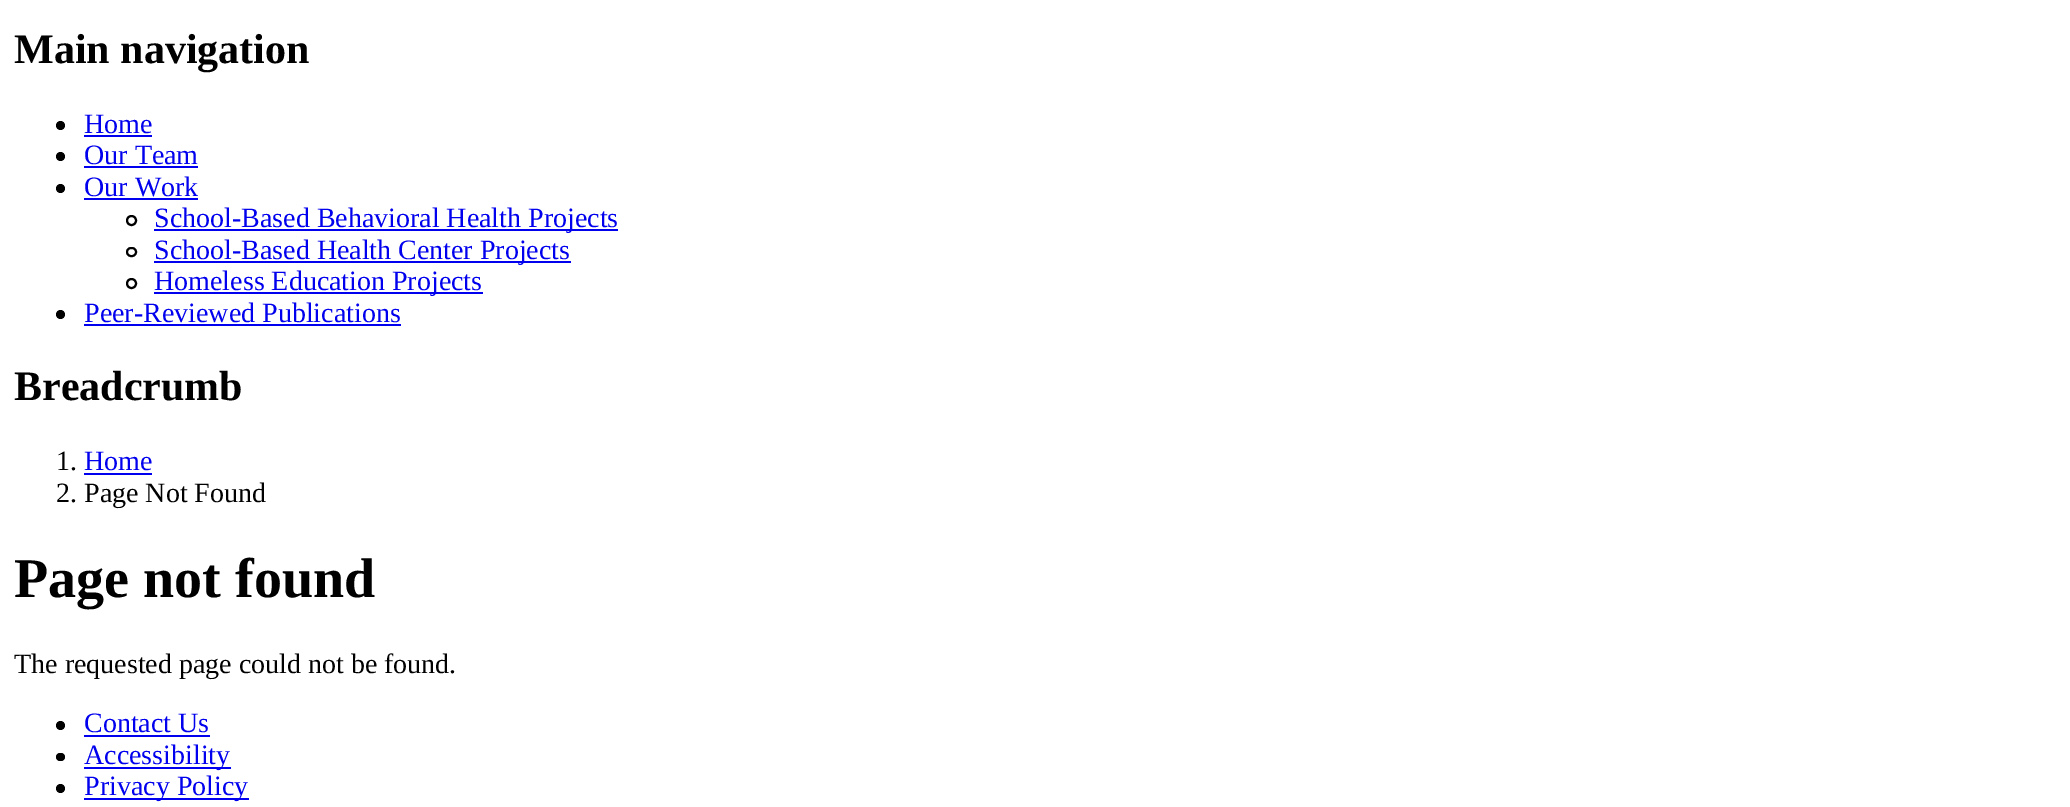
%!PS-Adobe-3.0
%%BoundingBox: 0 0 2070 807
%%LanguageLevel: 3
%%Pages: 1
%%EndComments
%%BeginProlog
/rrect { 5 dict begin { /r /h /w /y /x } { exch def } forall
  x r add y moveto x w add y 2 copy h add r arct x w add y h add x 1 index r arct
  x y h add x y r arct x y 2 copy exch w add exch r arct closepath end } def
%%EndProlog
%%BeginSetup
<< /PageSize [2070 807] >> setpagedevice
%%EndSetup
%%Page: 1 1
0 807 translate 1 -1 scale
4 setmiterlimit
1 setgray
0 0 2070 807 rectfill
0 setgray
newpath 60.5 125.5 4.5 0 360 arc closepath fill
0 0 0.933 setrgbcolor
84 135 68 2 rectfill
0 setgray
newpath 60.5 156.5 4.5 0 360 arc closepath fill
0 0 0.933 setrgbcolor
84 166 114 2 rectfill
0 setgray
newpath 60.5 188.5 4.5 0 360 arc closepath fill
0 0 0.933 setrgbcolor
84 198 114 2 rectfill
0 setgray
2 setlinewidth
newpath 131.5 220.5 4.5 0 360 arc closepath stroke
0 0 0.933 setrgbcolor
154 229 464 2 rectfill
0 setgray
127 248 9 8 4 rrect stroke
0 0 0.933 setrgbcolor
154 261 417 2 rectfill
0 setgray
newpath 131.5 283.5 4.5 0 360 arc closepath stroke
0 0 0.933 setrgbcolor
154 292 329 2 rectfill
0 setgray
newpath 60.5 314.5 4.5 0 360 arc closepath fill
0 0 0.933 setrgbcolor
84 324 317 2 rectfill
84 473 68 2 rectfill
0 setgray
newpath 60.5 725.5 4.5 0 360 arc closepath fill
0 0 0.933 setrgbcolor
84 735 126 2 rectfill
0 setgray
56 753 9 8 4 rrect fill
0 0 0.933 setrgbcolor
84 767 147 2 rectfill
0 setgray
newpath 60.5 788.5 4.5 0 360 arc closepath fill
0 0 0.933 setrgbcolor
84 798 165 2 rectfill
/LiberationSerif-Bold [42 0 0 -42 0 0] selectfont
0 setgray
14 63 moveto (Main navigation) show
/LiberationSerif-Regular [28 0 0 -28 0 0] selectfont
0 0 0.933 setrgbcolor
84 133 moveto (Home) show
84 164 moveto (Our Team) show
84 196 moveto (Our Work) show
154 227 moveto (School-Based Behavioral Health Projects) show
154 259 moveto (School-Based Health Center Projects) show
154 290 moveto (Homeless Education Projects) show
84 322 moveto (Peer-Reviewed Publications) show
/LiberationSerif-Bold [42 0 0 -42 0 0] selectfont
0 setgray
14 400 moveto (Breadcrumb) show
/LiberationSerif-Regular [28 0 0 -28 0 0] selectfont
56 470 moveto (1.) show
0 0 0.933 setrgbcolor
84 470 moveto (Home) show
0 setgray
56 502 moveto (2. Page Not Found) show
/LiberationSerif-Bold [56 0 0 -56 0 0] selectfont
14 597 moveto (Page not found) show
/LiberationSerif-Regular [28 0 0 -28 0 0] selectfont
14 673 moveto (The requested page could not be found.) show
0 0 0.933 setrgbcolor
84 732 moveto (Contact Us) show
84 764 moveto (Accessibility) show
84 795 moveto (Privacy Policy) show
showpage
%%EOF
